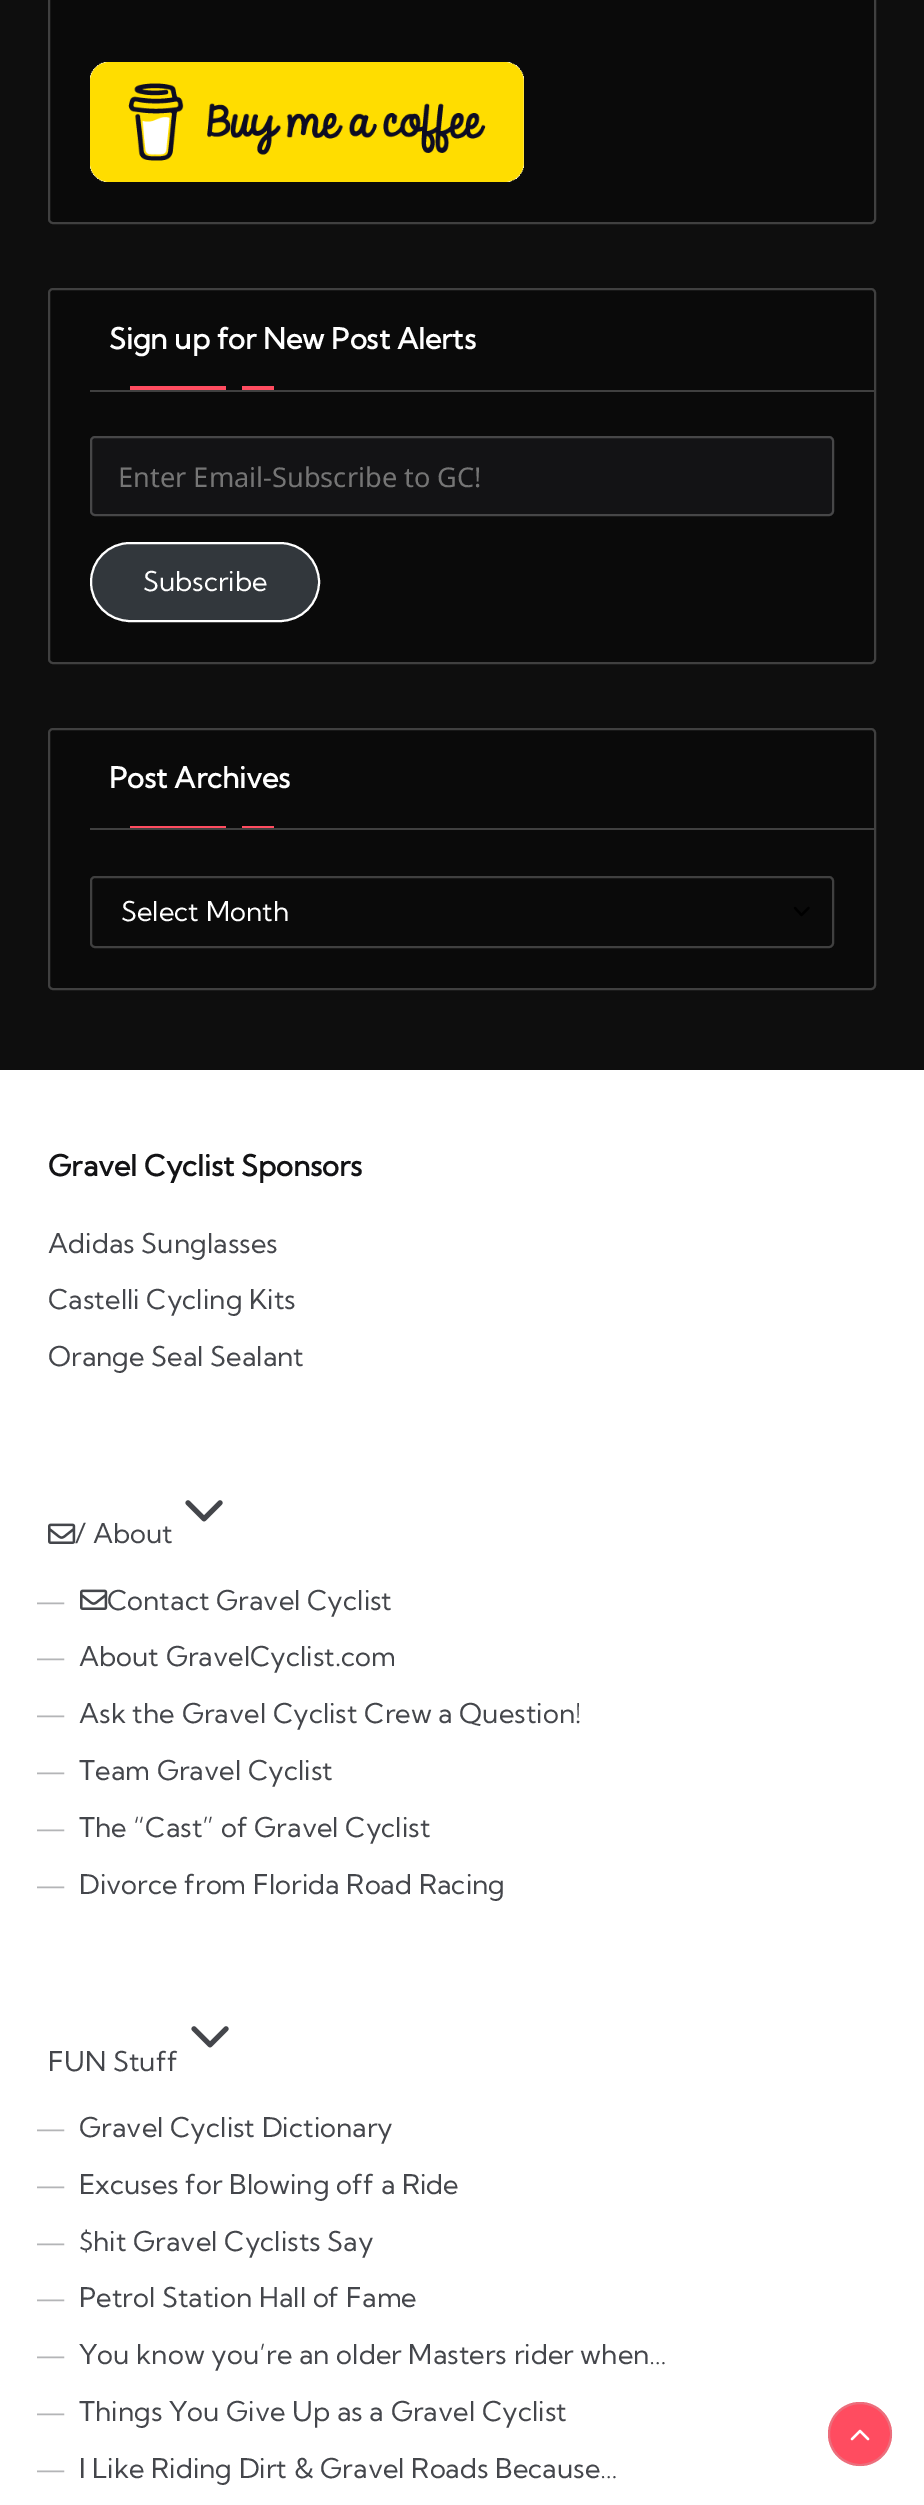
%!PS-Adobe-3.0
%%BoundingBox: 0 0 924 2505
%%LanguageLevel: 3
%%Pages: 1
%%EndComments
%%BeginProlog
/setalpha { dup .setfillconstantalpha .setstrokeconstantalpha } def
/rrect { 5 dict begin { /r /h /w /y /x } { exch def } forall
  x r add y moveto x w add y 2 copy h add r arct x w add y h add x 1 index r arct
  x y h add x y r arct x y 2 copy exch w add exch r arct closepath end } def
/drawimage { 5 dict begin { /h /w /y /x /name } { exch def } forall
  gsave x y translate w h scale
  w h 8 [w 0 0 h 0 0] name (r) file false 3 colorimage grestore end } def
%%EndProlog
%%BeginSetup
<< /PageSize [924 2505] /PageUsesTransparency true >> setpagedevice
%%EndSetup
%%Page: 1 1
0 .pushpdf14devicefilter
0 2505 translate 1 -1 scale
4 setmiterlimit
0.055 setgray
0 0 924 2505 rectfill
0.039 setgray
49 -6 826 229 4 rrect gsave fill grestore
0.251 setgray
2 setlinewidth
stroke
(images/1.raw) 90 62 434 120 drawimage
0.039 setgray
49 289 826 374 4 rrect gsave fill grestore
0.251 setgray
stroke
90 390 784 2 rectfill
1 0.298 0.376 setrgbcolor
130 386 96 4 rectfill
242 386 32 4 rectfill
0.075 0.075 0.082 setrgbcolor
90 436 744 80 5 rrect fill
0.3 setalpha
0.745 setgray
91 437 742 78 4 rrect stroke
1 setalpha
0.196 0.216 0.235 setrgbcolor
91 543 228 78 39 rrect gsave fill grestore
1 setgray
stroke
0.039 setgray
49 729 826 260 4 rrect gsave fill grestore
0.251 setgray
stroke
90 828 784 2 rectfill
1 0.298 0.376 setrgbcolor
130 826 96 2 rectfill
242 826 32 2 rectfill
0 setgray
2.3 setlinewidth
1 setlinecap
1 setlinejoin
newpath 795 908 moveto 801.5 915 lineto 808.5 908 lineto stroke
0.251 setgray
2 setlinewidth
0 setlinecap
0 setlinejoin
91 877 742 70 4 rrect stroke
1 setgray
0 1070 924 1435 rectfill
(images/2.raw) 185 1500 38 22 drawimage
(images/3.raw) 48 1523 28 21 drawimage
(images/3.raw) 80 1589 28 21 drawimage
(images/2.raw) 191 2026 38 22 drawimage
1 0.298 0.376 setrgbcolor
newpath 860 2434 32 0 360 arc closepath fill
0.3 setalpha
0.745 setgray
newpath 860 2434 31 0 360 arc closepath stroke
1 setalpha
(images/4.raw) 850 2429 20 12 drawimage
/KumbhSans-Bold [28.75 0 0 -28.75 0 0] selectfont
1 setgray
109 349 moveto (Sign up for New Post Alerts) show
/NotoSans-Regular [27.2 0 0 -27.2 0 0] selectfont
0.459 setgray
118 487 moveto (Enter Email-Subscribe to GC!) show
/KumbhSans-Regular [27.2 0 0 -27.2 0 0] selectfont
1 setgray
143 591 moveto (Subscribe) show
/KumbhSans-Bold [28.75 0 0 -28.75 0 0] selectfont
109 788 moveto (Post Archives) show
/KumbhSans-Regular [27.2 0 0 -27.2 0 0] selectfont
121 921 moveto (Select Month) show
/KumbhSans-Bold [28.75 0 0 -28.75 0 0] selectfont
0.075 0.075 0.082 setrgbcolor
48 1176 moveto (Gravel Cyclist Sponsors) show
/KumbhSans-Regular [27.2 0 0 -27.2 0 0] selectfont
0.267 0.275 0.294 setrgbcolor
48 1253 moveto (Adidas Sunglasses) show
48 1309 moveto (Castelli Cycling Kits) show
48 1366 moveto (Orange Seal Sealant) show
75 1543 moveto (/ About) show
0.706 0.71 0.718 setrgbcolor
35 1610 moveto (—) show
0.267 0.275 0.294 setrgbcolor
107 1610 moveto (Contact Gravel Cyclist) show
0.706 0.71 0.718 setrgbcolor
35 1666 moveto (—) show
0.267 0.275 0.294 setrgbcolor
79 1666 moveto (About GravelCyclist.com) show
0.706 0.71 0.718 setrgbcolor
35 1723 moveto (—) show
0.267 0.275 0.294 setrgbcolor
79 1723 moveto (Ask the Gravel Cyclist Crew a Question!) show
0.706 0.71 0.718 setrgbcolor
35 1780 moveto (—) show
0.267 0.275 0.294 setrgbcolor
79 1780 moveto (Team Gravel Cyclist) show
0.706 0.71 0.718 setrgbcolor
35 1837 moveto (—) show
0.267 0.275 0.294 setrgbcolor
79 1837 moveto (The “Cast” of Gravel Cyclist) show
0.706 0.71 0.718 setrgbcolor
35 1894 moveto (—) show
0.267 0.275 0.294 setrgbcolor
79 1894 moveto (Divorce from Florida Road Racing) show
48 2071 moveto (FUN Stuff) show
0.706 0.71 0.718 setrgbcolor
35 2137 moveto (—) show
0.267 0.275 0.294 setrgbcolor
79 2137 moveto (Gravel Cyclist Dictionary) show
0.706 0.71 0.718 setrgbcolor
35 2194 moveto (—) show
0.267 0.275 0.294 setrgbcolor
79 2194 moveto (Excuses for Blowing off a Ride) show
0.706 0.71 0.718 setrgbcolor
35 2251 moveto (—) show
0.267 0.275 0.294 setrgbcolor
79 2251 moveto ($hit Gravel Cyclists Say) show
0.706 0.71 0.718 setrgbcolor
35 2307 moveto (—) show
0.267 0.275 0.294 setrgbcolor
79 2307 moveto (Petrol Station Hall of Fame) show
0.706 0.71 0.718 setrgbcolor
35 2364 moveto (—) show
0.267 0.275 0.294 setrgbcolor
79 2364 moveto (You know you’re an older Masters rider when…) show
0.706 0.71 0.718 setrgbcolor
35 2421 moveto (—) show
0.267 0.275 0.294 setrgbcolor
79 2421 moveto (Things You Give Up as a Gravel Cyclist) show
0.706 0.71 0.718 setrgbcolor
35 2478 moveto (—) show
0.267 0.275 0.294 setrgbcolor
79 2478 moveto (I Like Riding Dirt & Gravel Roads Because…) show
.poppdf14devicefilter showpage
%%EOF
